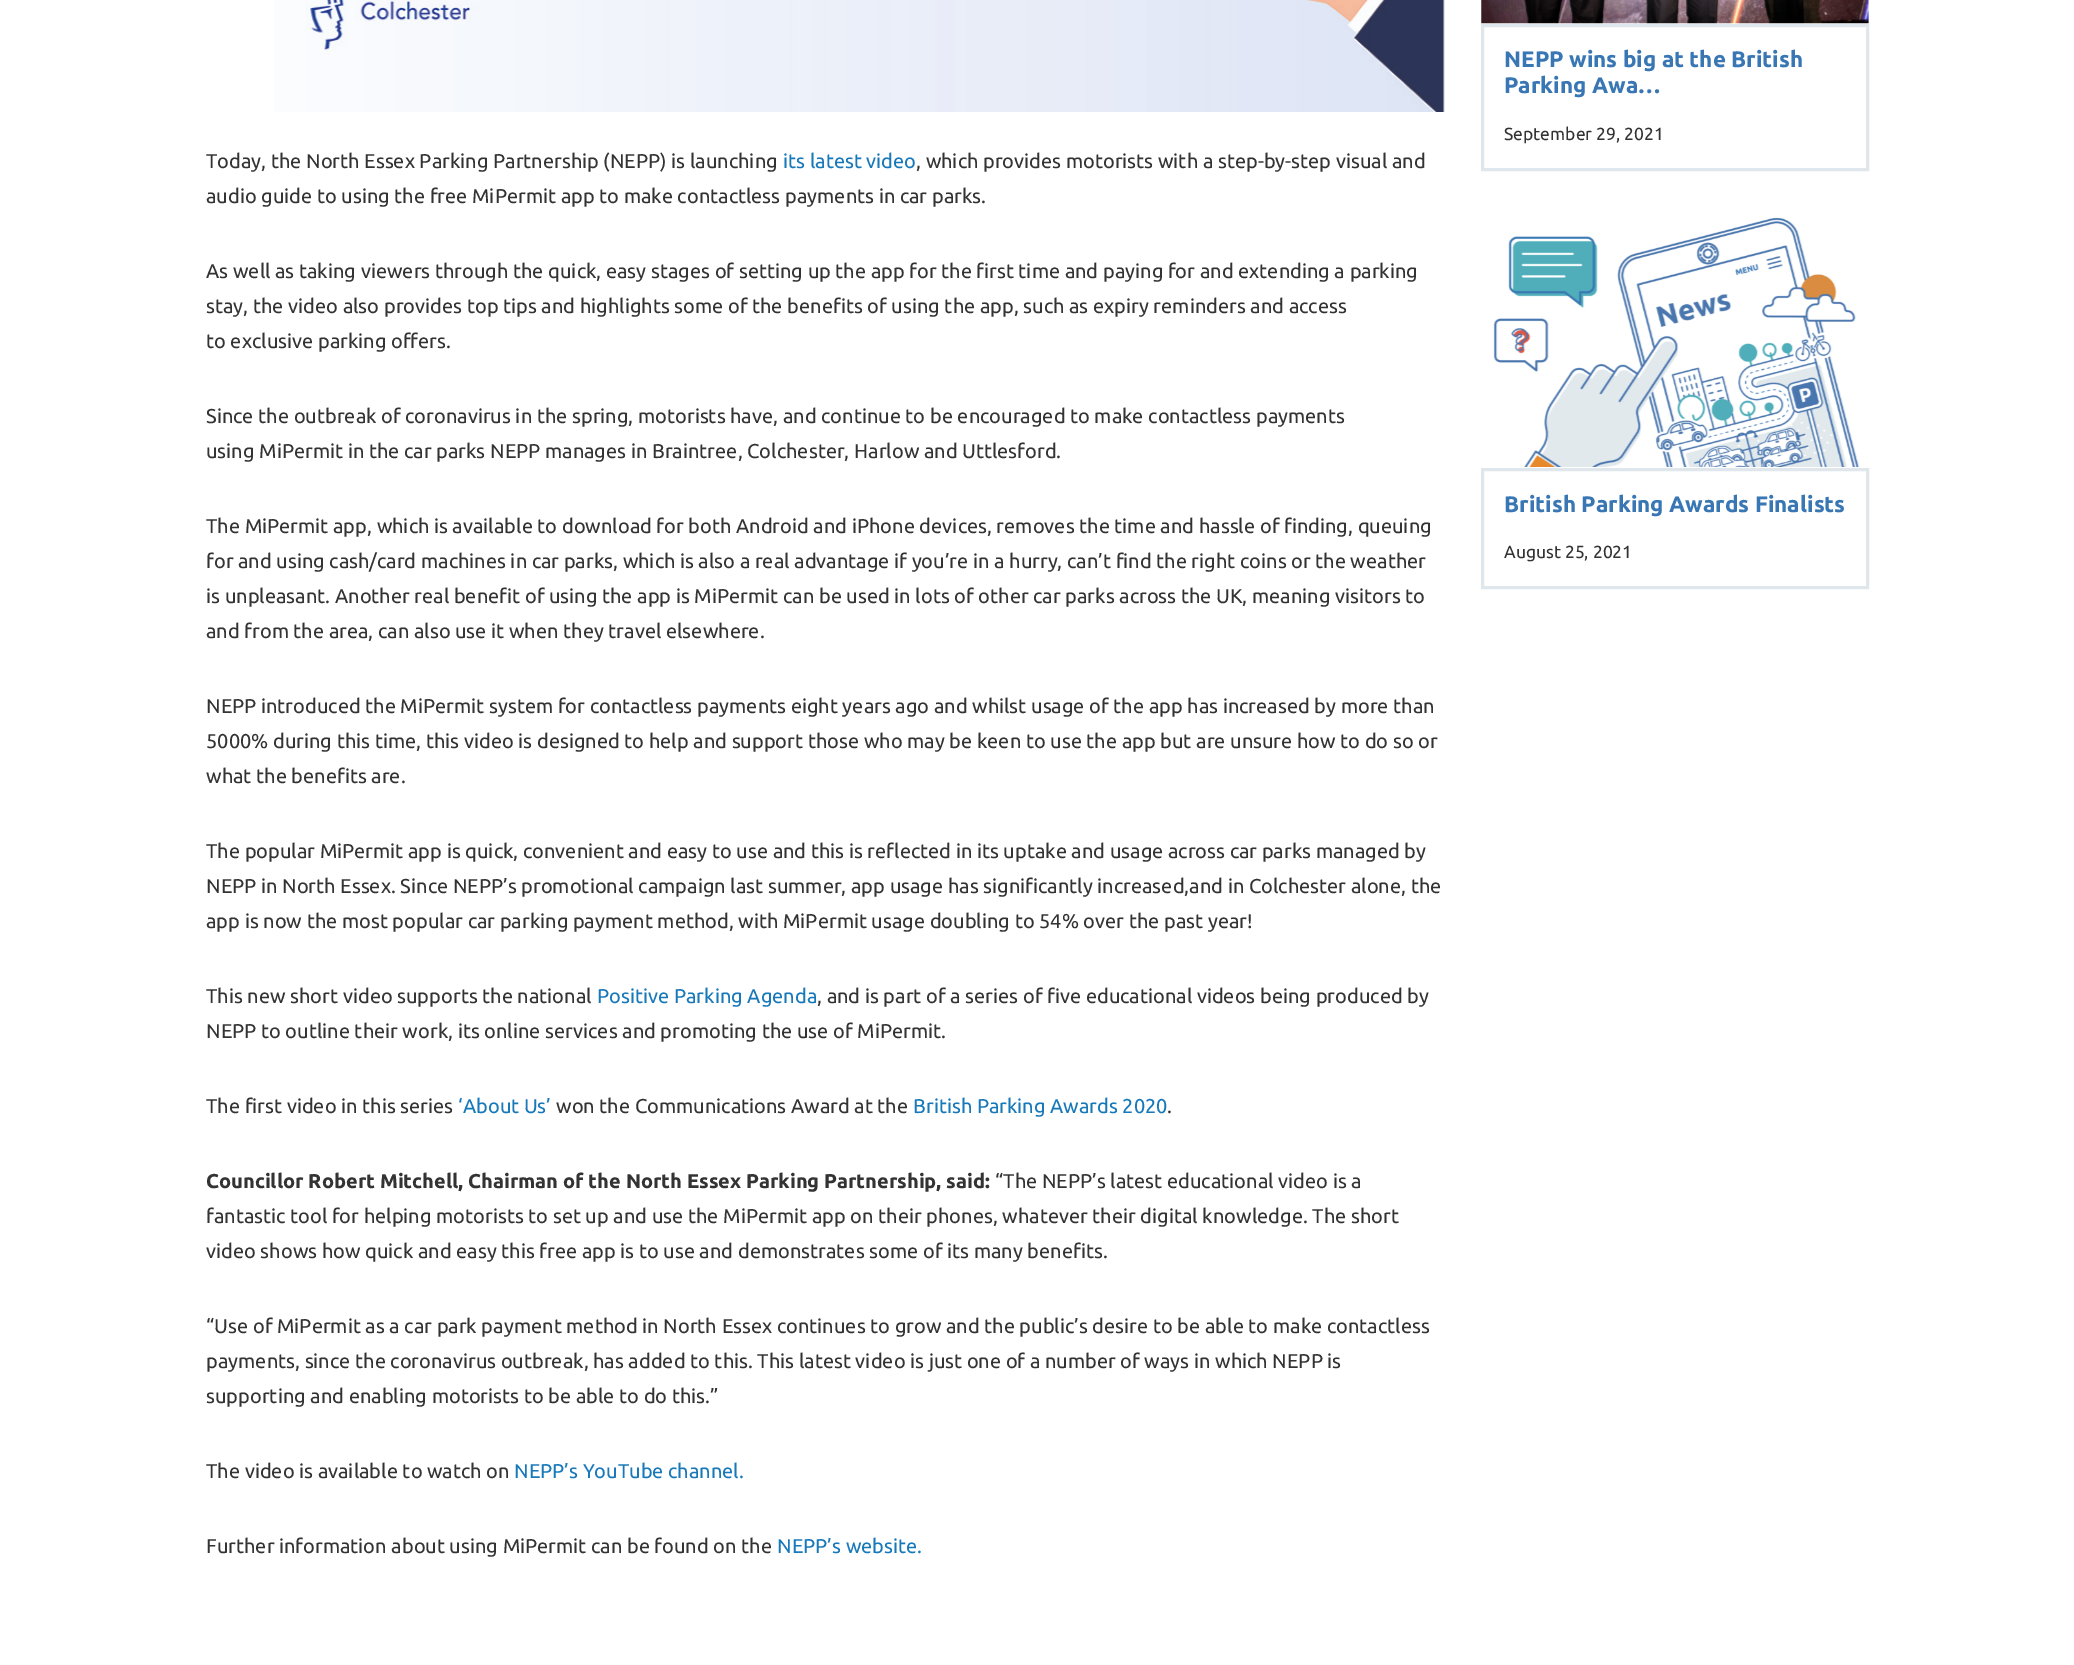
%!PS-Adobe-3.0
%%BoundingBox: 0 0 2074 1665
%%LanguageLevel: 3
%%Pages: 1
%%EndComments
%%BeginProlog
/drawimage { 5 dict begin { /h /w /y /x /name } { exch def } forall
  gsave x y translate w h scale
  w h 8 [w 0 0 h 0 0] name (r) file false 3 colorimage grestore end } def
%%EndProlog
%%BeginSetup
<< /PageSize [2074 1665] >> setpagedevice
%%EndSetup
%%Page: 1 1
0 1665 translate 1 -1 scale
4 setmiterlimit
1 setgray
0 0 2074 1665 rectfill
(images/1.raw) 274 0 1171 112 drawimage
(images/2.raw) 1481 0 388 24 drawimage
0.875 0.906 0.929 setrgbcolor
3 setlinewidth
1482.5 25.5 385 144 rectstroke
(images/3.raw) 1493 217 367 250 drawimage
1482.5 469.5 385 118 rectstroke
/Ubuntu-Regular [20 0 0 -20 0 0] selectfont
0.2 setgray
206 168 moveto (Today, the North Essex Parking Partnership \(NEPP\) is launching) show
0.09 0.475 0.729 setrgbcolor
783 168 moveto (its latest video) show
0.2 setgray
916 168 moveto (, which provides motorists with a step-by-step visual and) show
206 203 moveto (audio guide to using the free MiPermit app to make contactless payments in car parks.) show
206 278 moveto (As well as taking viewers through the quick, easy stages of setting up the app for the first time and paying for and extending a parking) show
206 313 moveto (stay, the video also provides top tips and highlights some of the benefits of using the app, such as expiry reminders and access) show
206 348 moveto (to exclusive parking offers.) show
206 423 moveto (Since the outbreak of coronavirus in the spring, motorists have, and continue to be encouraged to make contactless payments) show
206 458 moveto (using MiPermit in the car parks NEPP manages in Braintree, Colchester, Harlow and Uttlesford.) show
206 533 moveto (The MiPermit app, which is available to download for both Android and iPhone devices, removes the time and hassle of finding, queuing) show
206 568 moveto (for and using cash/card machines in car parks, which is also a real advantage if you’re in a hurry, can’t find the right coins or the weather) show
206 603 moveto (is unpleasant. Another real benefit of using the app is MiPermit can be used in lots of other car parks across the UK, meaning visitors to) show
206 638 moveto (and from the area, can also use it when they travel elsewhere.) show
206 713 moveto (NEPP introduced the MiPermit system for contactless payments eight years ago and whilst usage of the app has increased by more than) show
206 748 moveto (5000% during this time, this video is designed to help and support those who may be keen to use the app but are unsure how to do so or) show
206 783 moveto (what the benefits are.) show
206 858 moveto (The popular MiPermit app is quick, convenient and easy to use and this is reflected in its uptake and usage across car parks managed by) show
206 893 moveto (NEPP in North Essex. Since NEPP’s promotional campaign last summer, app usage has significantly increased,and in Colchester alone, the) show
206 928 moveto (app is now the most popular car parking payment method, with MiPermit usage doubling to 54% over the past year!) show
206 1003 moveto (This new short video supports the national) show
0.09 0.475 0.729 setrgbcolor
597 1003 moveto (Positive Parking Agenda) show
0.2 setgray
817 1003 moveto (, and is part of a series of five educational videos being produced by) show
206 1038 moveto (NEPP to outline their work, its online services and promoting the use of MiPermit.) show
206 1113 moveto (The first video in this series) show
0.09 0.475 0.729 setrgbcolor
458 1113 moveto (‘About Us’) show
0.2 setgray
556 1113 moveto (won the Communications Award at the) show
0.09 0.475 0.729 setrgbcolor
913 1113 moveto (British Parking Awards 2020) show
0.2 setgray
1167 1113 moveto (.) show
/Ubuntu-Bold [20 0 0 -20 0 0] selectfont
206 1188 moveto (Councillor Robert Mitchell, Chairman of the North Essex Parking Partnership, said:) show
/Ubuntu-Regular [20 0 0 -20 0 0] selectfont
995 1188 moveto (“The NEPP’s latest educational video is a) show
206 1223 moveto (fantastic tool for helping motorists to set up and use the MiPermit app on their phones, whatever their digital knowledge. The short) show
206 1258 moveto (video shows how quick and easy this free app is to use and demonstrates some of its many benefits.) show
206 1333 moveto (“Use of MiPermit as a car park payment method in North Essex continues to grow and the public’s desire to be able to make contactless) show
206 1368 moveto (payments, since the coronavirus outbreak, has added to this. This latest video is just one of a number of ways in which NEPP is) show
206 1403 moveto (supporting and enabling motorists to be able to do this.”) show
206 1478 moveto (The video is available to watch on) show
0.09 0.475 0.729 setrgbcolor
514 1478 moveto (NEPP’s YouTube channel.) show
0.2 setgray
206 1553 moveto (Further information about using MiPermit can be found on the) show
0.09 0.475 0.729 setrgbcolor
777 1553 moveto (NEPP’s website.) show
/Ubuntu-Bold [22.5 0 0 -22.5 0 0] selectfont
0.224 0.467 0.706 setrgbcolor
1504 67 moveto (NEPP wins big at the British) show
1504 93 moveto (Parking Awa…) show
/Ubuntu-Regular [17.5 0 0 -17.5 0 0] selectfont
0.2 setgray
1504 140 moveto (September 29, 2021) show
/Ubuntu-Bold [22.5 0 0 -22.5 0 0] selectfont
0.224 0.467 0.706 setrgbcolor
1504 512 moveto (British Parking Awards Finalists) show
/Ubuntu-Regular [17.5 0 0 -17.5 0 0] selectfont
0.2 setgray
1504 558 moveto (August 25, 2021) show
showpage
%%EOF
